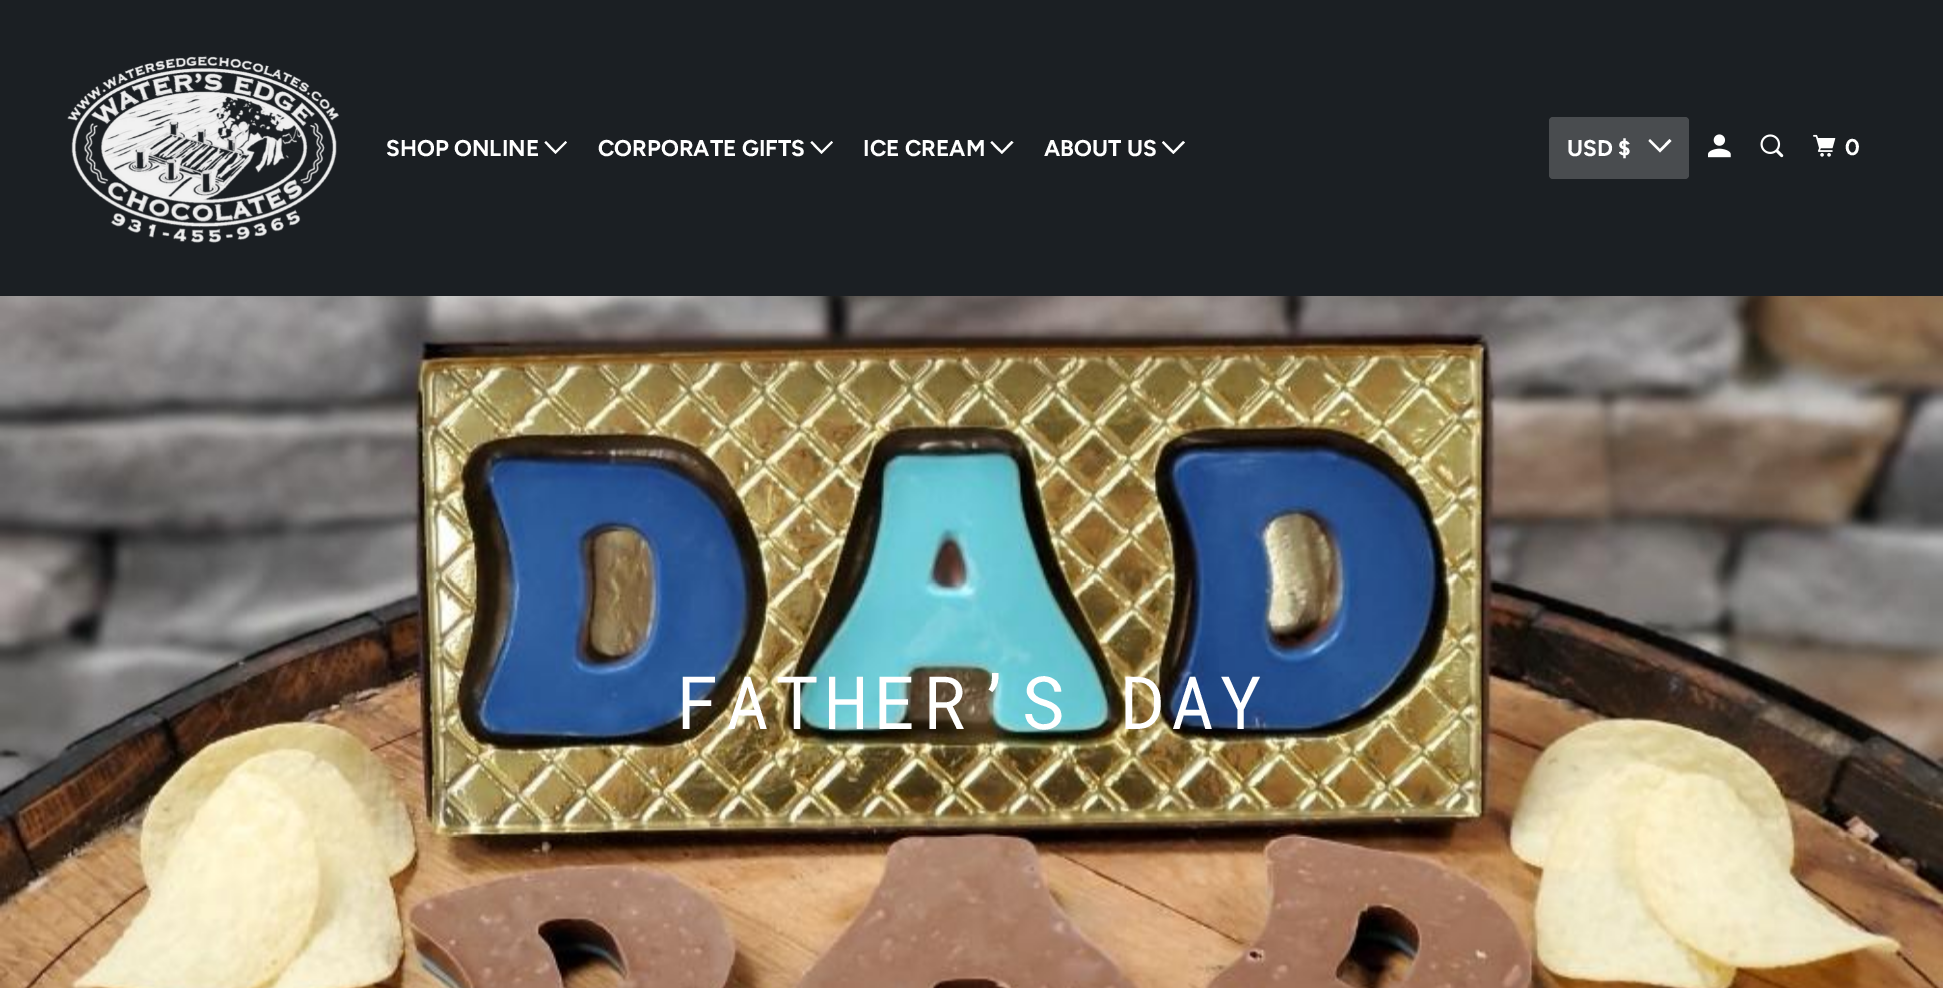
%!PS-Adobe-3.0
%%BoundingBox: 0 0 1943 988
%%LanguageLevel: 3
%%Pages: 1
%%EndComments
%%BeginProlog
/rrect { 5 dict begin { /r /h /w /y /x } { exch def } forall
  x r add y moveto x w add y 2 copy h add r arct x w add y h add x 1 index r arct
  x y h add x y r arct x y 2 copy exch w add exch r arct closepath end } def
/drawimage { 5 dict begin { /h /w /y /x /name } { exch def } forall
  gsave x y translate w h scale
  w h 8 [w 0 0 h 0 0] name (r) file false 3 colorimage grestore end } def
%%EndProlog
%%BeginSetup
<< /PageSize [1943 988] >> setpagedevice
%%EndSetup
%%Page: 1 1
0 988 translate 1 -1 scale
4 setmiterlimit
0.106 0.122 0.137 setrgbcolor
0 0 1943 988 rectfill
(images/1.raw) 67 55 272 188 drawimage
1 setgray
newpath 550 148.5 moveto 544.5 142.5 lineto 546 141 lineto 555.5 151 lineto 565.5 141 lineto 567 142.5 lineto 555.5 154 lineto closepath fill
newpath 816 148.5 moveto 810.5 142.5 lineto 812 141 lineto 821.5 151 lineto 831.5 141 lineto 833 142.5 lineto 821.5 154 lineto closepath fill
newpath 996 148.5 moveto 990.5 142.5 lineto 992 141 lineto 1002 151 lineto 1011.5 141 lineto 1013.5 142.5 lineto 1002 154 lineto closepath fill
newpath 1167.5 148.5 moveto 1162 142.5 lineto 1163.5 141 lineto 1173.5 151 lineto 1183 141 lineto 1185 142.5 lineto 1173.5 154 lineto closepath fill
0.286 0.298 0.31 setrgbcolor
1549 117 140 62 4 rrect fill
1 setgray
newpath 1654 146.5 moveto 1648.5 141 lineto 1650 139 lineto 1660 149 lineto 1669.5 139 lineto 1671.5 141 lineto 1660 152.5 lineto closepath fill
(images/2.raw) 1708 134 23 24 drawimage
(images/3.raw) 1760 134 24 24 drawimage
(images/4.raw) 1813 134 23 23 drawimage
(images/5.raw) 0 296 1943 692 drawimage
/Figtree-Bold [22.75 0 0 -22.75 0 0] selectfont
386 156 moveto (SHOP ONLINE) show
598 156 moveto (CORPORATE GIFTS) show
863 156 moveto (ICE CREAM) show
1044 156 moveto (ABOUT US) show
1567 156 moveto (USD $) show
1845 155 moveto (0) show
/RobotoMono-Regular [73.5 0 0 -73.5 0 0] selectfont
676 729 moveto 5.25 0 (FATHER’S DAY) ashow
showpage
%%EOF
